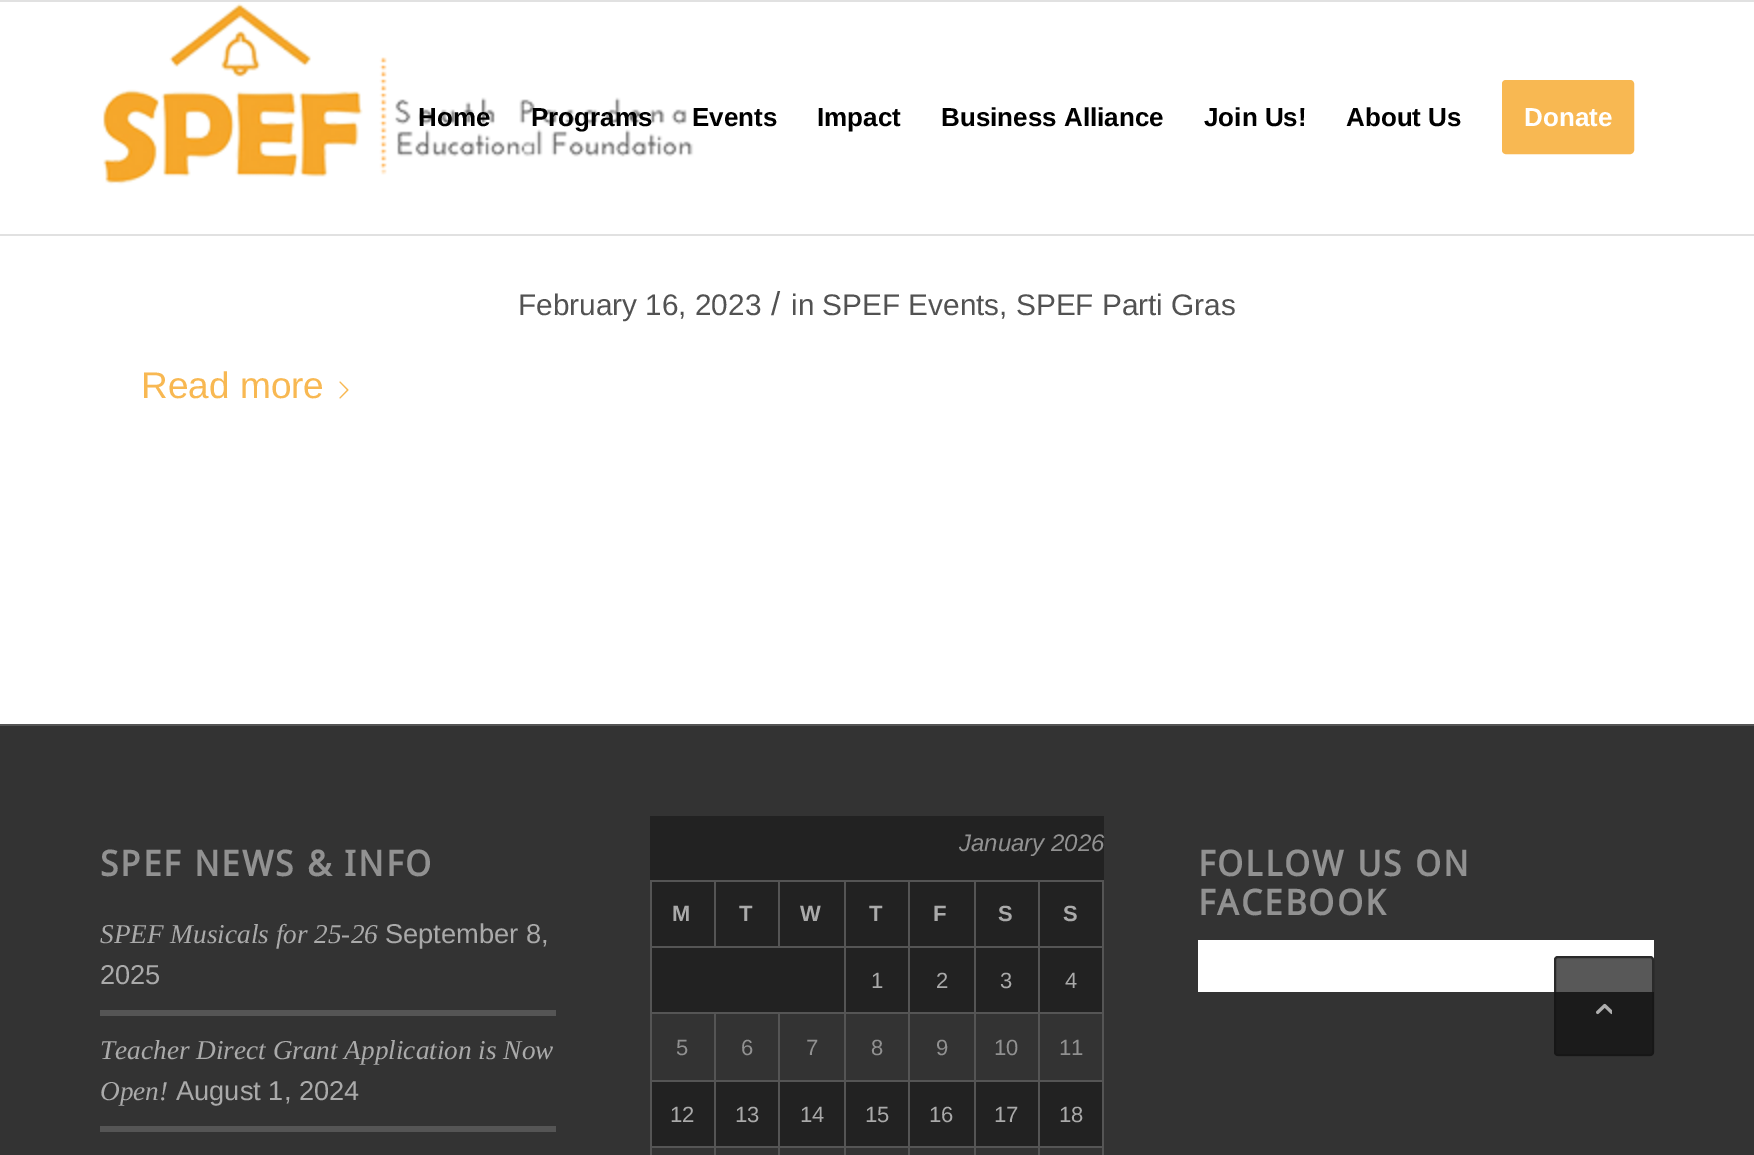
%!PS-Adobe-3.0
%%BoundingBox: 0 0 1754 1155
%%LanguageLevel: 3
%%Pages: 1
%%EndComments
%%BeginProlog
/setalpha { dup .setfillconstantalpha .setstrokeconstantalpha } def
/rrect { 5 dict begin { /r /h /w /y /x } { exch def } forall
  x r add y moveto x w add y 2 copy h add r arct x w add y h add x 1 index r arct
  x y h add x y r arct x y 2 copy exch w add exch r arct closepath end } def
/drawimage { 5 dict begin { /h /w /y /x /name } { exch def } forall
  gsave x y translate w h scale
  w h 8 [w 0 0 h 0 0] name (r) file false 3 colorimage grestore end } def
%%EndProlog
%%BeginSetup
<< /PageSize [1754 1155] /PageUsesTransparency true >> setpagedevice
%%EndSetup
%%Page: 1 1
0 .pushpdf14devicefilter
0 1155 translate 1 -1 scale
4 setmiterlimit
1 setgray
0 0 1754 1155 rectfill
0.882 setgray
0 0 1754 2 rectfill
0 234 1754 2 rectfill
(images/1.raw) 103 3 591 182 drawimage
0.973 0.722 0.322 setrgbcolor
1504 82 128 70 2 rrect gsave fill grestore
4 setlinewidth
stroke
(images/2.raw) 339 381 10 18 drawimage
0.2 setgray
0 726 1754 429 rectfill
0.333 setgray
0 724 1754 2 rectfill
100 1010 456 6 rectfill
100 1126 456 6 rectfill
0.133 setgray
650 816 454 330 rectfill
0.333 setgray
650 880 454 2 rectfill
650 946 454 2 rectfill
714 880 2 68 rectfill
1102 1012 2 143 rectfill
1102 946 2 68 rectfill
0.2 setgray
652 1014 450 66 rectfill
0.333 setgray
1038 1146 2 9 rectfill
1038 1146 66 2 rectfill
1038 1080 2 68 rectfill
1038 1080 66 2 rectfill
1038 1012 2 70 rectfill
1038 1012 66 2 rectfill
1038 946 2 68 rectfill
974 1146 2 9 rectfill
974 1146 66 2 rectfill
974 1080 2 68 rectfill
974 1080 66 2 rectfill
974 1012 2 70 rectfill
974 1012 66 2 rectfill
974 946 2 68 rectfill
908 1146 2 9 rectfill
908 1146 68 2 rectfill
908 1080 2 68 rectfill
908 1080 68 2 rectfill
908 1012 2 70 rectfill
908 1012 68 2 rectfill
908 946 2 68 rectfill
844 1146 2 9 rectfill
844 1146 66 2 rectfill
844 1080 2 68 rectfill
844 1080 66 2 rectfill
844 1012 2 70 rectfill
844 1012 66 2 rectfill
844 946 2 68 rectfill
778 1146 2 9 rectfill
778 1146 68 2 rectfill
778 1080 2 68 rectfill
778 1080 68 2 rectfill
778 1012 2 70 rectfill
714 1146 2 9 rectfill
714 1146 66 2 rectfill
714 1080 2 68 rectfill
714 1080 66 2 rectfill
714 1012 2 70 rectfill
650 1146 2 9 rectfill
650 1146 66 2 rectfill
650 1080 2 68 rectfill
650 1080 66 2 rectfill
650 1012 2 70 rectfill
650 1012 196 2 rectfill
650 946 2 68 rectfill
650 880 2 68 rectfill
778 880 2 68 rectfill
844 880 2 68 rectfill
908 880 2 68 rectfill
974 880 2 68 rectfill
1038 880 2 68 rectfill
1102 880 2 68 rectfill
1 setgray
1198 940 456 52 rectfill
0.7 setalpha
0.067 setgray
1554 956 100 100 4 rrect fill
0.086 setgray
2 setlinewidth
1555 957 98 98 3 rrect stroke
1 setalpha
(images/3.raw) 1596 1003 16 12 drawimage
/LiberationSans-Bold [26 0 0 -26 0 0] selectfont
0 setgray
418 126 moveto (Home) show
531 126 moveto (Programs) show
692 126 moveto (Events) show
817 126 moveto (Impact) show
941 126 moveto (Business Alliance) show
1204 126 moveto (Join Us!) show
1346 126 moveto (About Us) show
1 setgray
1524 126 moveto (Donate) show
/LiberationSans-Regular [29.75 0 0 -29.75 0 0] selectfont
0.322 setgray
518 315 moveto (February 16, 2023) show
/LiberationSans-Regular [33 0 0 -33 0 0] selectfont
771 315 moveto (/) show
/LiberationSans-Regular [29.75 0 0 -29.75 0 0] selectfont
791 315 moveto (in SPEF Events, SPEF Parti Gras) show
/LiberationSans-Regular [37 0 0 -37 0 0] selectfont
0.973 0.722 0.322 setrgbcolor
141 398 moveto (Read more) show
/DroidSans-Bold [35.25 0 0 -35.25 0 0] selectfont
0.569 setgray
100 876 moveto 2 0 (SPEF NEWS & INFO) ashow
/LiberationSerif-Italic [27.25 0 0 -27.25 0 0] selectfont
0.667 setgray
100 943 moveto (SPEF Musicals for 25-26) show
/LiberationSans-Regular [27.25 0 0 -27.25 0 0] selectfont
385 943 moveto (September 8,) show
100 984 moveto (2025) show
/LiberationSerif-Italic [27.25 0 0 -27.25 0 0] selectfont
100 1059 moveto (Teacher Direct Grant Application is Now) show
100 1100 moveto (Open!) show
/LiberationSans-Regular [27.25 0 0 -27.25 0 0] selectfont
176 1100 moveto (August 1, 2024) show
/LiberationSans-Italic [24 0 0 -24 0 0] selectfont
0.569 setgray
959 851 moveto (January 2026) show
/LiberationSans-Bold [22 0 0 -22 0 0] selectfont
0.667 setgray
672 921 moveto 3 0 (M) ashow
739 921 moveto 3 0 (T) ashow
800 921 moveto 3 0 (W) ashow
869 921 moveto 3 0 (T) ashow
933 921 moveto 3 0 (F) ashow
998 921 moveto 3 0 (S) ashow
1063 921 moveto 3 0 (S) ashow
/LiberationSans-Regular [22 0 0 -22 0 0] selectfont
871 988 moveto (1) show
936 988 moveto (2) show
1000 988 moveto (3) show
1065 988 moveto (4) show
0.569 setgray
676 1055 moveto (5) show
741 1055 moveto (6) show
806 1055 moveto (7) show
871 1055 moveto (8) show
936 1055 moveto (9) show
994 1055 moveto (10) show
1059 1055 moveto (11) show
0.667 setgray
670 1122 moveto (12) show
735 1122 moveto (13) show
800 1122 moveto (14) show
865 1122 moveto (15) show
929 1122 moveto (16) show
994 1122 moveto (17) show
1059 1122 moveto (18) show
/DroidSans-Bold [35.25 0 0 -35.25 0 0] selectfont
0.569 setgray
1198 876 moveto 2 0 (FOLLOW US ON) ashow
1198 915 moveto 2 0 (FACEBOOK) ashow
.poppdf14devicefilter showpage
%%EOF
